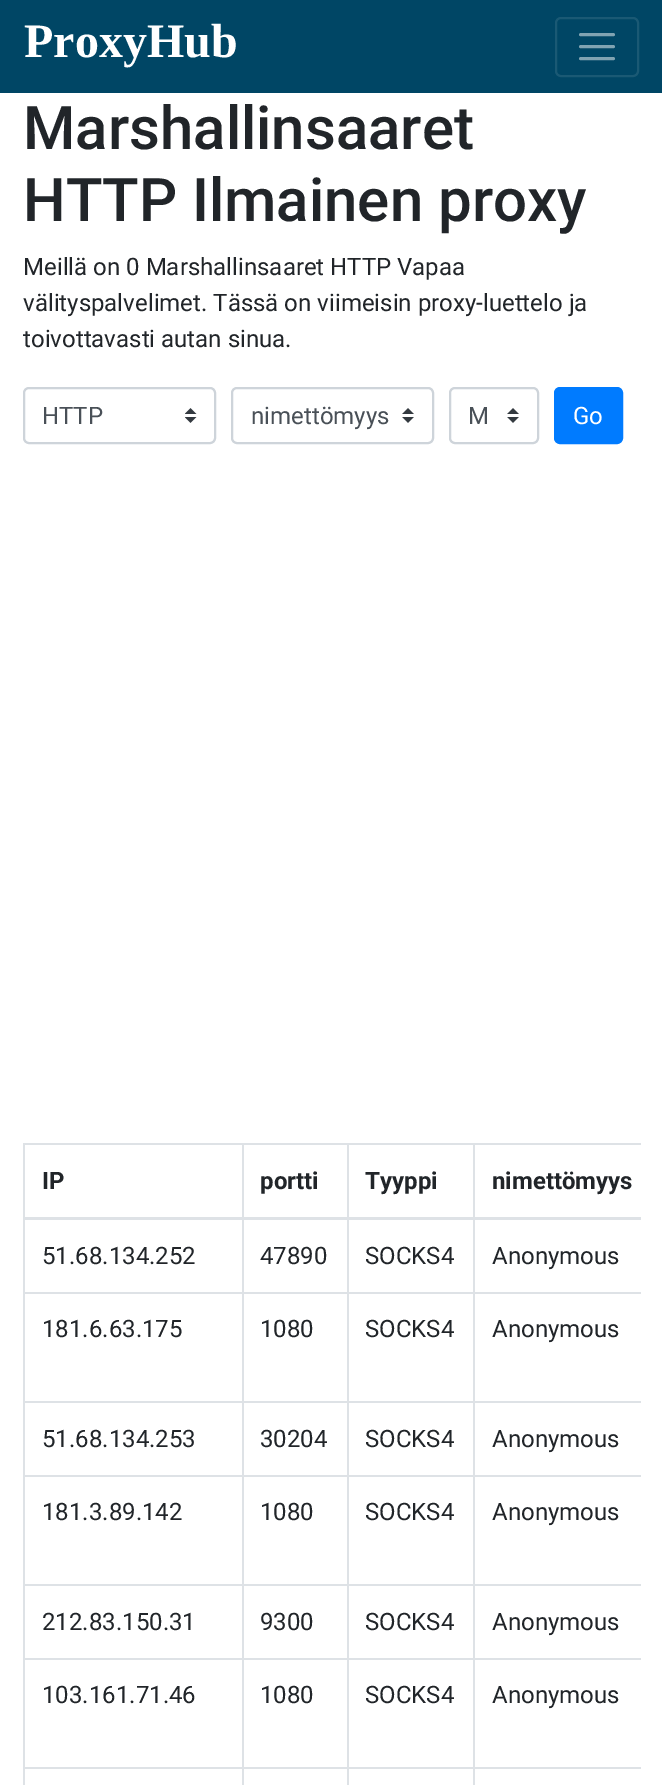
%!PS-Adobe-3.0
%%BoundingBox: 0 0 662 1785
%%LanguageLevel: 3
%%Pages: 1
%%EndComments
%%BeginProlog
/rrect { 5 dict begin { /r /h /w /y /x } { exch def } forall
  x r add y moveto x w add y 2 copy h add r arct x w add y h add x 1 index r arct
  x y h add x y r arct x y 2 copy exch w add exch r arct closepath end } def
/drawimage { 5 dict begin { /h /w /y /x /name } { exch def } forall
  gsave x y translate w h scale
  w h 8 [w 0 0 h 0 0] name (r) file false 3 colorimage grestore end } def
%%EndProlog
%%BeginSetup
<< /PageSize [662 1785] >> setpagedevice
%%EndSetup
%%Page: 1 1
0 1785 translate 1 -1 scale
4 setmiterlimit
1 setgray
0 0 662 1785 rectfill
0 0.275 0.396 setrgbcolor
0 0 662 93 rectfill
0.102 0.349 0.455 setrgbcolor
2 setlinewidth
556 18 82 58 5 rrect stroke
0.502 0.639 0.698 setrgbcolor
3 setlinewidth
1 setlinecap
newpath 580.5 34.5 moveto 613.5 34.5 lineto 580.5 46.5 moveto 613.5 46.5 lineto 580.5 58.5 moveto 613.5 58.5 lineto stroke
(images/1.raw) 185 408 12 15 drawimage
0.808 0.831 0.855 setrgbcolor
2 setlinewidth
0 setlinecap
24 388 191 55 5 rrect stroke
(images/2.raw) 402 408 12 15 drawimage
232 388 201 55 5 rrect stroke
(images/2.raw) 507 408 12 15 drawimage
450 388 88 55 5 rrect stroke
0 0.482 1 setrgbcolor
555 388 67 55 5 rrect gsave fill grestore
stroke
0.871 0.886 0.902 setrgbcolor
473 1143 168 2 rectfill
473 1292 168 2 rectfill
473 1401 168 2 rectfill
473 1475 168 2 rectfill
473 1584 168 2 rectfill
473 1658 168 2 rectfill
473 1767 168 2 rectfill
473 1767 2 18 rectfill
347 1767 127 2 rectfill
473 1658 2 111 rectfill
347 1658 127 2 rectfill
473 1584 2 75 rectfill
347 1584 127 2 rectfill
473 1475 2 111 rectfill
347 1475 127 2 rectfill
473 1401 2 75 rectfill
347 1401 127 2 rectfill
473 1292 2 111 rectfill
347 1292 127 2 rectfill
473 1218 2 75 rectfill
473 1143 2 77 rectfill
347 1143 127 2 rectfill
347 1767 2 18 rectfill
242 1767 106 2 rectfill
347 1658 2 111 rectfill
242 1658 106 2 rectfill
347 1584 2 75 rectfill
242 1584 106 2 rectfill
347 1475 2 111 rectfill
242 1475 106 2 rectfill
347 1401 2 75 rectfill
242 1401 106 2 rectfill
347 1292 2 111 rectfill
242 1292 106 2 rectfill
347 1218 2 75 rectfill
347 1143 2 77 rectfill
242 1143 106 2 rectfill
242 1767 2 18 rectfill
23 1767 220 2 rectfill
242 1658 2 111 rectfill
23 1658 220 2 rectfill
242 1584 2 75 rectfill
23 1584 220 2 rectfill
242 1475 2 111 rectfill
23 1475 220 2 rectfill
242 1401 2 75 rectfill
23 1401 220 2 rectfill
242 1292 2 111 rectfill
23 1292 220 2 rectfill
242 1218 2 75 rectfill
242 1143 2 77 rectfill
23 1143 220 2 rectfill
23 1767 2 18 rectfill
23 1658 2 111 rectfill
23 1584 2 75 rectfill
23 1475 2 111 rectfill
23 1401 2 75 rectfill
23 1218 2 185 rectfill
23 1143 2 77 rectfill
23 1217 618 3 rectfill
/LiberationSerif-Bold [48 0 0 -48 0 0] selectfont
1 setgray
24 57 moveto (ProxyHub) show
/Roboto-Medium [60 0 0 -60 0 0] selectfont
0.129 0.145 0.161 setrgbcolor
23 149 moveto (Marshallinsaaret) show
23 221 moveto (HTTP Ilmainen proxy) show
/Roboto-Regular [24 0 0 -24 0 0] selectfont
23 275 moveto (Meillä on 0 Marshallinsaaret HTTP Vapaa) show
23 311 moveto (välityspalvelimet. Tässä on viimeisin proxy-luettelo ja) show
23 347 moveto (toivottavasti autan sinua.) show
0.286 0.314 0.341 setrgbcolor
42 424 moveto (HTTP) show
251 424 moveto (nimettömyys) show
468 424 moveto (M) show
1 setgray
573 424 moveto (Go) show
/Roboto-Bold [24 0 0 -24 0 0] selectfont
0.129 0.145 0.161 setrgbcolor
42 1189 moveto (IP) show
260 1189 moveto (portti) show
365 1189 moveto (Tyyppi) show
492 1189 moveto (nimettömyys) show
/Roboto-Regular [24 0 0 -24 0 0] selectfont
42 1264 moveto (51.68.134.252) show
260 1264 moveto (47890) show
365 1264 moveto (SOCKS4) show
492 1264 moveto (Anonymous) show
42 1337 moveto (181.6.63.175) show
260 1337 moveto (1080) show
365 1337 moveto (SOCKS4) show
492 1337 moveto (Anonymous) show
42 1447 moveto (51.68.134.253) show
260 1447 moveto (30204) show
365 1447 moveto (SOCKS4) show
492 1447 moveto (Anonymous) show
42 1520 moveto (181.3.89.142) show
260 1520 moveto (1080) show
365 1520 moveto (SOCKS4) show
492 1520 moveto (Anonymous) show
42 1630 moveto (212.83.150.31) show
260 1630 moveto (9300) show
365 1630 moveto (SOCKS4) show
492 1630 moveto (Anonymous) show
42 1703 moveto (103.161.71.46) show
260 1703 moveto (1080) show
365 1703 moveto (SOCKS4) show
492 1703 moveto (Anonymous) show
showpage
%%EOF
